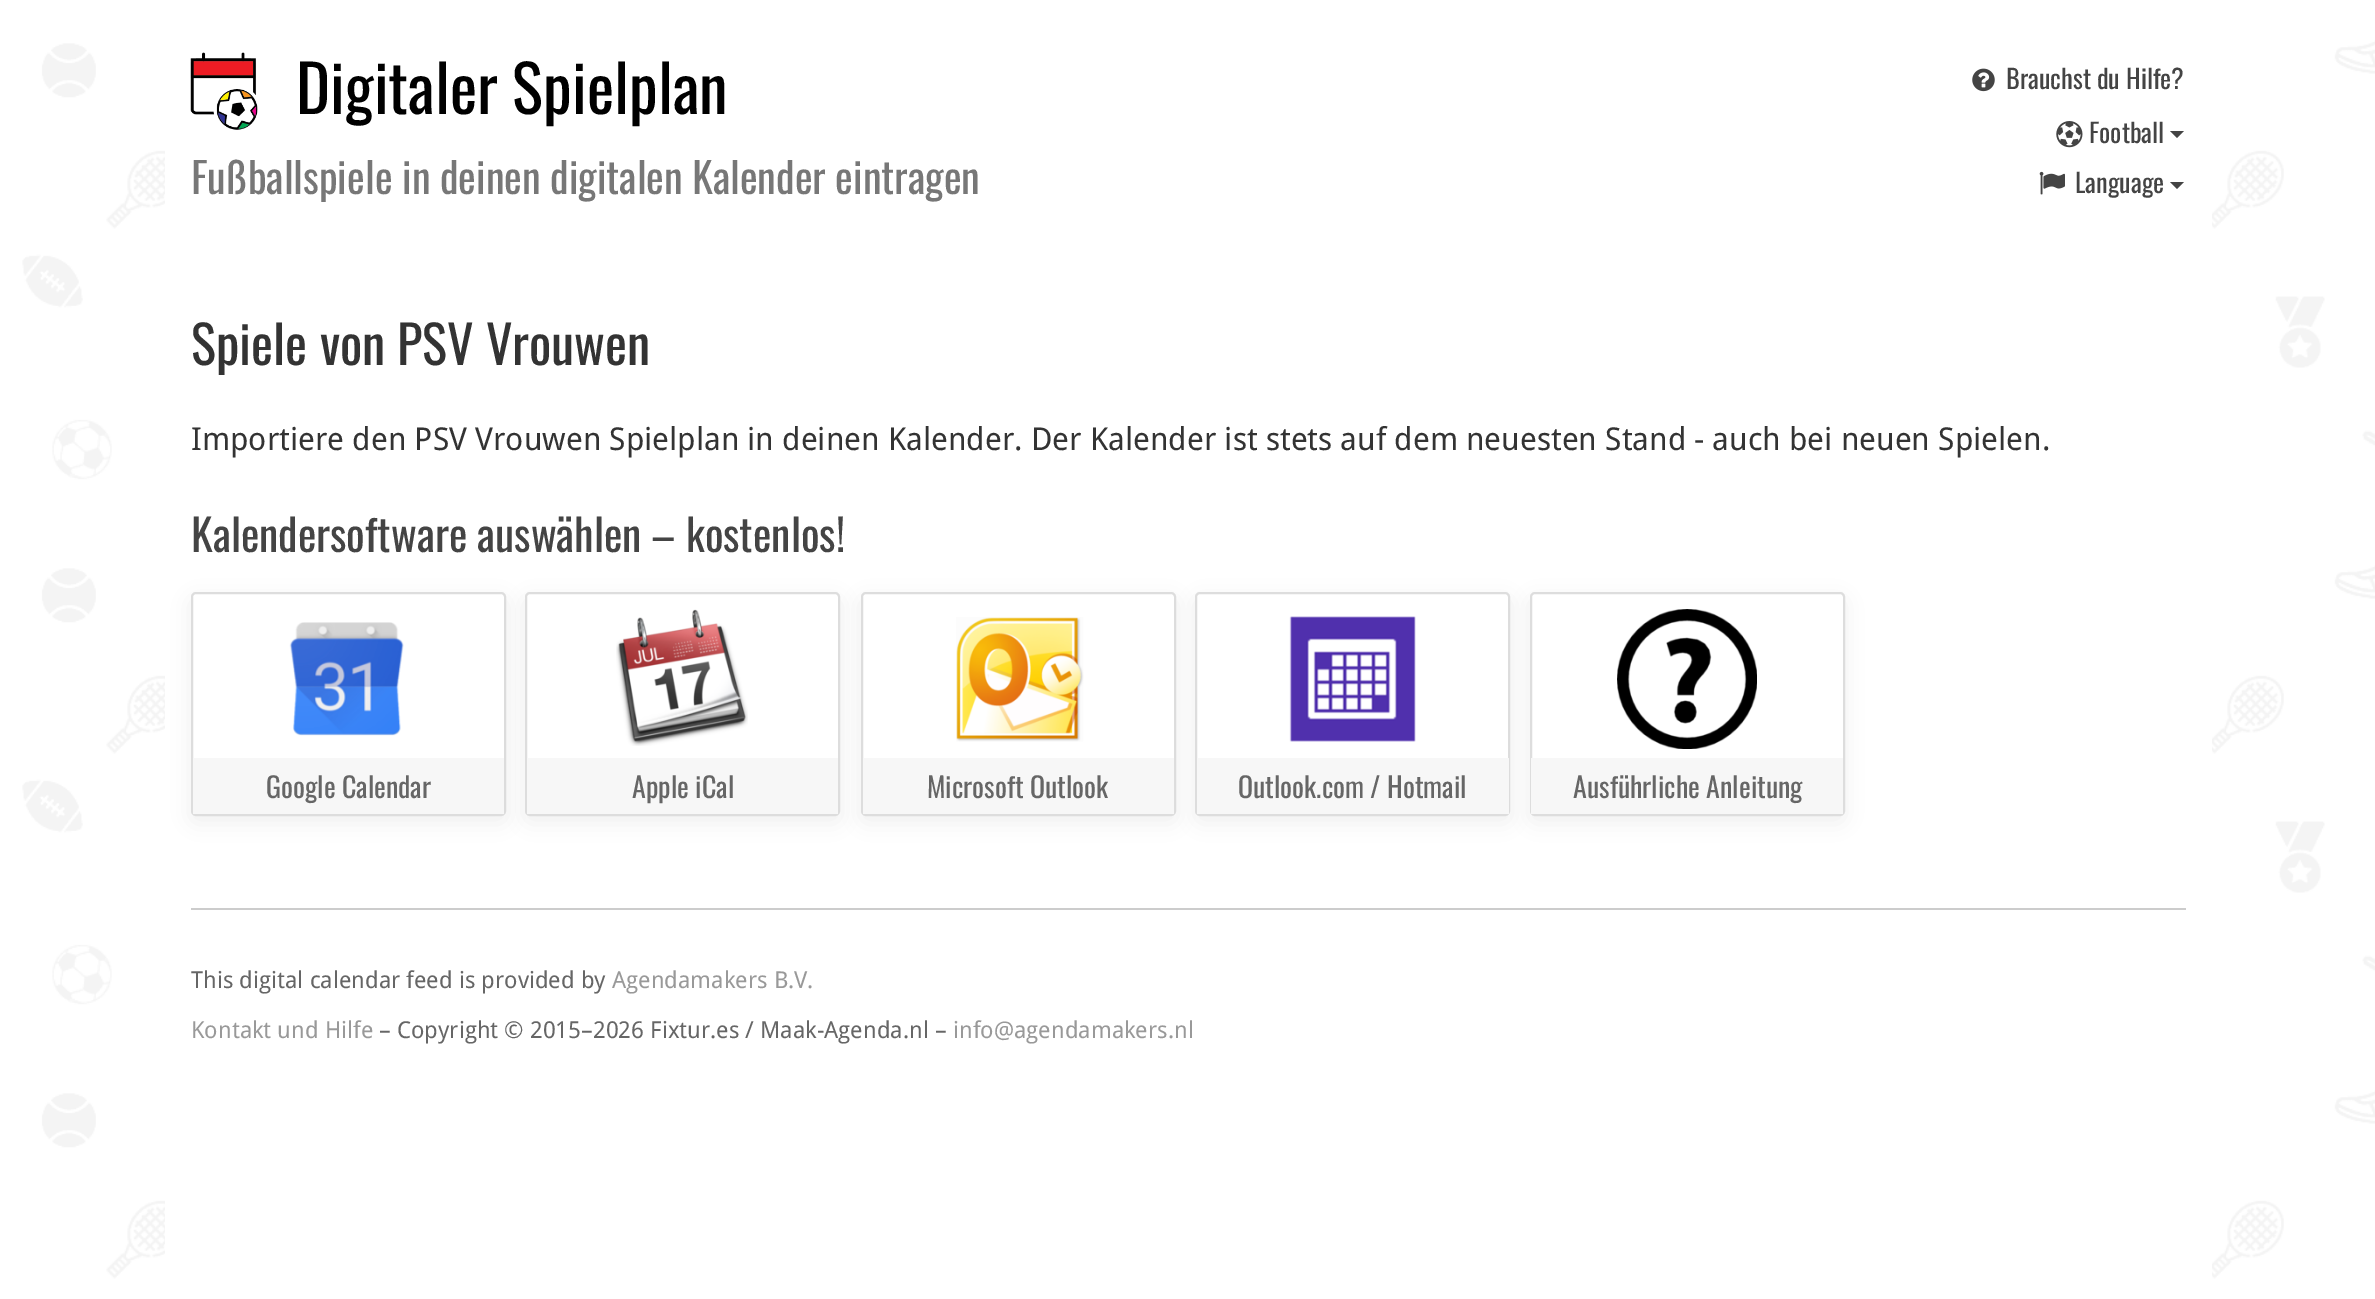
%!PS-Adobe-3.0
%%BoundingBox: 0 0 2375 1299
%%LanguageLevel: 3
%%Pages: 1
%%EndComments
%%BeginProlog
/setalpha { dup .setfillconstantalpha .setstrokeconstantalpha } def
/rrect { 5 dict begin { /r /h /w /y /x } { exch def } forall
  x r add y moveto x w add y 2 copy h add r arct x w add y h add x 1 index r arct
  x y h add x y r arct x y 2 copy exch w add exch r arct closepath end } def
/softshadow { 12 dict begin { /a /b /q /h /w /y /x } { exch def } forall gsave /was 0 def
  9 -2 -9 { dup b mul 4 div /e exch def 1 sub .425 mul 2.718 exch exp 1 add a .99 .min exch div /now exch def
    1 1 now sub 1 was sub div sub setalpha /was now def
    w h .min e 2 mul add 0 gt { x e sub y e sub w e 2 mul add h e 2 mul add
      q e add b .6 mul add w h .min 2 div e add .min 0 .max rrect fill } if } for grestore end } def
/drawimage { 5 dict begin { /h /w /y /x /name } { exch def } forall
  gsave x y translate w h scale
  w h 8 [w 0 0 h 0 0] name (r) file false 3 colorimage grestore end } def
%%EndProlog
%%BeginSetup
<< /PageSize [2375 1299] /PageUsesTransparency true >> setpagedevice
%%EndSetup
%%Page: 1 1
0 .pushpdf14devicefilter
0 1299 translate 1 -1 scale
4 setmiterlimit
1 setgray
0 0 2375 1299 rectfill
(images/1.raw) 22 15 2353 1275 drawimage
165 15 2047 1275 rectfill
(images/2.raw) 190 52 68 78 drawimage
(images/3.raw) 1972 68 23 24 drawimage
(images/4.raw) 2056 121 27 27 drawimage
0.267 setgray
newpath 2170 131 moveto 2184 131 lineto 2177 138 lineto closepath fill
(images/5.raw) 2039 171 26 24 drawimage
newpath 2170 182 moveto 2184 182 lineto 2177 189 lineto closepath fill
0 setgray
189 597 319 227 7 10.5 0.05 softshadow
1 setgray
192 593 313 222 4 rrect gsave fill grestore
0.867 setgray
2 setlinewidth
stroke
(images/6.raw) 289 622 115 114 drawimage
0 setgray
523 597 319 227 7 10.5 0.05 softshadow
0.969 setgray
193 758 311 56 rectfill
1 setgray
526 593 313 222 4 rrect gsave fill grestore
0.867 setgray
stroke
(images/7.raw) 616 609 132 137 drawimage
0 setgray
859 597 319 227 7 10.5 0.05 softshadow
0.969 setgray
527 758 311 56 rectfill
1 setgray
862 593 313 222 4 rrect gsave fill grestore
0.867 setgray
stroke
(images/8.raw) 956 617 128 125 drawimage
0 setgray
1194 597 318 227 7 10.5 0.05 softshadow
0.969 setgray
863 758 311 56 rectfill
1 setgray
1196 593 313 222 4 rrect gsave fill grestore
0.867 setgray
stroke
(images/9.raw) 1289 616 127 126 drawimage
0 setgray
1528 597 318 227 7 10.5 0.05 softshadow
0.969 setgray
1197 758 312 56 rectfill
1 setgray
1531 593 313 222 4 rrect gsave fill grestore
0.867 setgray
stroke
(images/10.raw) 1617 609 140 140 drawimage
0.969 setgray
1531 758 312 56 rectfill
0.8 setgray
191 908 1995 2 rectfill
/Oswald-Regular [64.75 0 0 -64.75 0 0] selectfont
0 setgray
296 114 moveto (Digitaler Spielplan) show
/Oswald-Regular [42.1 0 0 -42.1 0 0] selectfont
0.467 setgray
191 194 moveto (Fußballspiele in deinen digitalen Kalender eintragen) show
/Oswald-Regular [26.25 0 0 -26.25 0 0] selectfont
0.267 setgray
2006 89 moveto (Brauchst du Hilfe?) show
2089 143 moveto (Football) show
2075 193 moveto (Language) show
/Oswald-Regular [52.5 0 0 -52.5 0 0] selectfont
0.2 setgray
191 365 moveto (Spiele von PSV Vrouwen) show
/DroidSans-Regular [31.5 0 0 -31.5 0 0] selectfont
191 450 moveto (Importiere den PSV Vrouwen Spielplan in deinen Kalender. Der Kalender ist stets auf dem neuesten Stand - auch bei neuen Spielen.) show
/Oswald-Regular [43.75 0 0 -43.75 0 0] selectfont
0.267 setgray
191 552 moveto (Kalendersoftware auswählen – kostenlos!) show
/Oswald-Regular [28 0 0 -28 0 0] selectfont
0.4 setgray
266 798 moveto (Google Calendar) show
632 798 moveto (Apple iCal) show
927 798 moveto (Microsoft Outlook) show
1238 798 moveto (Outlook.com / Hotmail) show
1573 798 moveto (Ausführliche Anleitung) show
/DroidSans-Regular [23.3 0 0 -23.3 0 0] selectfont
191 988 moveto (This digital calendar feed is provided by) show
0.6 setgray
612 988 moveto (Agendamakers B.V.) show
191 1038 moveto (Kontakt und Hilfe) show
0.4 setgray
379 1038 moveto (– Copyright © 2015–2026 Fixtur.es / Maak-Agenda.nl –) show
0.6 setgray
953 1038 moveto (info@agendamakers.nl) show
.poppdf14devicefilter showpage
%%EOF
